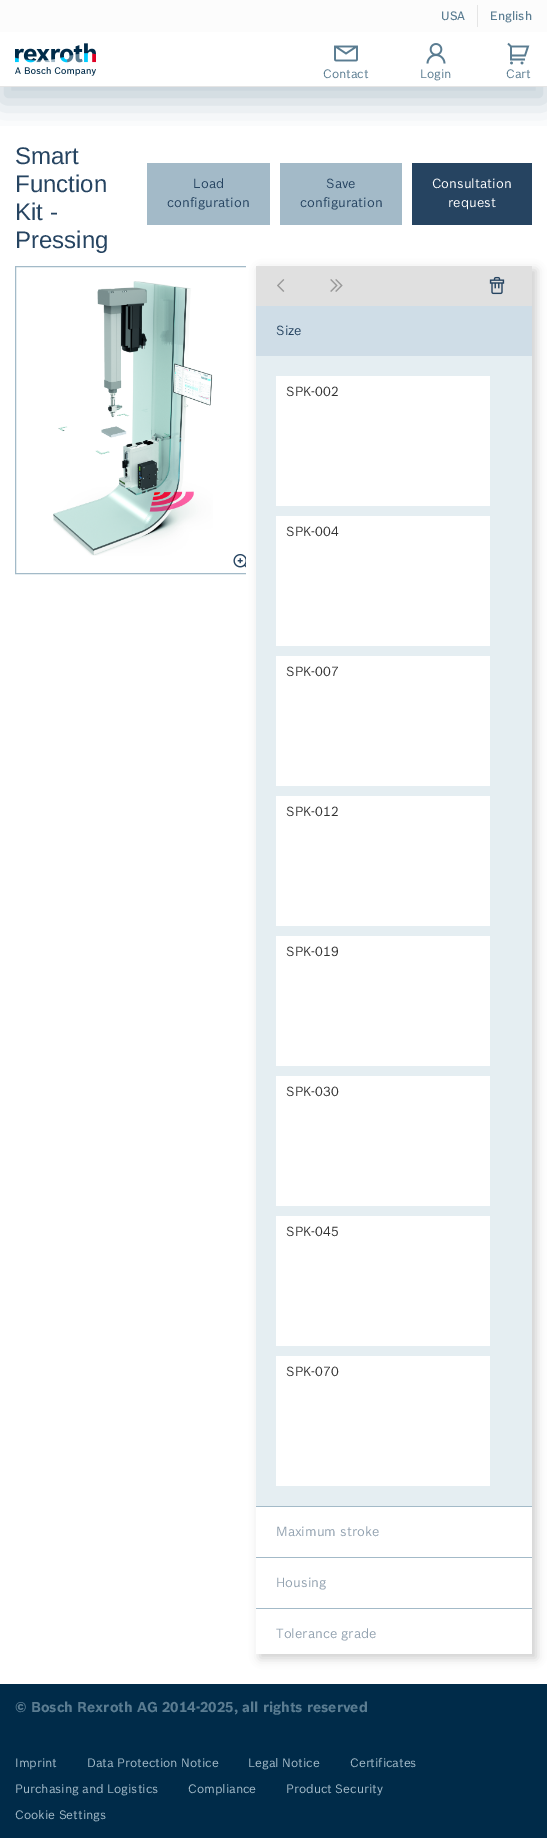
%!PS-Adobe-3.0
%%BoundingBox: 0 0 547 1838
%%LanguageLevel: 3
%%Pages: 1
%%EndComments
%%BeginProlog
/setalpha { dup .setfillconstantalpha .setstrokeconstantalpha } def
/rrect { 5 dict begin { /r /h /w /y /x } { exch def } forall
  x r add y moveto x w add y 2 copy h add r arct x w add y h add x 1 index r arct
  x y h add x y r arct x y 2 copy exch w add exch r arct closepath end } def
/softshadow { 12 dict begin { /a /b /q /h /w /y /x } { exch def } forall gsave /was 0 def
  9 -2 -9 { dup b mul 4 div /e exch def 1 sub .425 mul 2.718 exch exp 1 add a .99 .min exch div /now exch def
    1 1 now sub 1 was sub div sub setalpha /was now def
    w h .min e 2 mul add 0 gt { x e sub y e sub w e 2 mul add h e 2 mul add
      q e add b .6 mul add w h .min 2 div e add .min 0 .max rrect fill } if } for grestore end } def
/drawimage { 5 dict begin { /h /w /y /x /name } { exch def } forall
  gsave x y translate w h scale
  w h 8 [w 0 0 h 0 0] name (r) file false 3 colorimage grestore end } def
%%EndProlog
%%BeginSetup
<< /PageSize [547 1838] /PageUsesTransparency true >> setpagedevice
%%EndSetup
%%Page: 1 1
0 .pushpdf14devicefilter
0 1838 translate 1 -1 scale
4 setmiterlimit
1 setgray
0 0 547 1838 rectfill
gsave
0 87 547 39 rectclip
0.353 0.486 0.569 setrgbcolor
0 15 547 87 0 15 0.35 softshadow
grestore
0.988 setgray
0 0 547 32 rectfill
0.898 setgray
477 5 1 22 rectfill
0 86 547 1 rectfill
(images/1.raw) 15 43 81 33 drawimage
(images/2.raw) 334 45 24 17 drawimage
(images/3.raw) 426 43 20 21 drawimage
(images/4.raw) 507 42 23 23 drawimage
0.639 0.729 0.784 setrgbcolor
147 163 123 62 rectfill
280 163 122 62 rectfill
0.149 0.267 0.38 setrgbcolor
412 163 120 62 rectfill
gsave
15 266 231 1387 rectclip
0.639 0.729 0.784 setrgbcolor
15.5 266.5 237 307 rectstroke
grestore
(images/5.raw) 53 281 160 275 drawimage
(images/6.raw) 233 553 13 15 drawimage
gsave
newpath 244 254 moveto 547 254 lineto 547 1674 lineto 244 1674 lineto closepath 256 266 moveto 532 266 lineto 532 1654 lineto 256 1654 lineto closepath eoclip newpath
0 setgray
260 270 276 1388 0 5 0.2 softshadow
grestore
0.878 setgray
256 266 276 40 rectfill
(images/7.raw) 277 279 8 13 drawimage
(images/8.raw) 330 279 13 13 drawimage
(images/9.raw) 489 276 16 19 drawimage
0.898 0.933 0.949 setrgbcolor
256 356 276 1150 rectfill
0.639 0.729 0.784 setrgbcolor
256 1506 276 1 rectfill
0.812 0.867 0.906 setrgbcolor
256 306 276 50 rectfill
1 setgray
276 376 214 130 rectfill
276 516 214 130 rectfill
276 656 214 130 rectfill
276 796 214 130 rectfill
276 936 214 130 rectfill
276 1076 214 130 rectfill
276 1216 214 130 rectfill
276 1356 214 130 rectfill
0.639 0.729 0.784 setrgbcolor
256 1557 276 1 rectfill
256 1608 276 1 rectfill
0 0.169 0.286 setrgbcolor
0 1684 547 154 rectfill
/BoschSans-Medium [12 0 0 -12 0 0] selectfont
0.353 0.486 0.569 setrgbcolor
441 20 moveto (USA) show
490 20 moveto (English) show
/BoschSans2-Regular [12 0 0 -12 0 0] selectfont
323 78 moveto (Contact) show
420 78 moveto (Login) show
506 78 moveto (Cart) show
/LiberationSans-Regular [24 0 0 -24 0 0] selectfont
0.149 0.267 0.38 setrgbcolor
15 164 moveto (Smart) show
15 192 moveto (Function) show
15 220 moveto (Kit -) show
15 248 moveto (Pressing) show
/BoschSans-Regular [13 0 0 -13 0 0] selectfont
193 188 moveto (Load) show
167 207 moveto (configuration) show
326 188 moveto (Save) show
300 207 moveto (configuration) show
1 setgray
432 188 moveto (Consultation) show
448 207 moveto (request) show
0.149 0.267 0.38 setrgbcolor
276 335 moveto (Size) show
0.2 setgray
286 396 moveto (SPK-002) show
286 536 moveto (SPK-004) show
286 676 moveto (SPK-007) show
286 816 moveto (SPK-012) show
286 956 moveto (SPK-019) show
286 1096 moveto (SPK-030) show
286 1236 moveto (SPK-045) show
286 1376 moveto (SPK-070) show
0.576 0.635 0.69 setrgbcolor
276 1536 moveto (Maximum stroke) show
276 1587 moveto (Housing) show
276 1638 moveto (Tolerance grade) show
/BoschSans-Bold [14 0 0 -14 0 0] selectfont
0.353 0.486 0.569 setrgbcolor
15 1712 moveto (© Bosch Rexroth AG 2014-2025, all rights reserved) show
/BoschSans2-Regular [12 0 0 -12 0 0] selectfont
0.639 0.729 0.784 setrgbcolor
15 1767 moveto (Imprint) show
87 1767 moveto (Data Protection Notice) show
248 1767 moveto (Legal Notice) show
350 1767 moveto (Certificates) show
15 1793 moveto (Purchasing and Logistics) show
188 1793 moveto (Compliance) show
286 1793 moveto (Product Security) show
15 1819 moveto (Cookie Settings) show
.poppdf14devicefilter showpage
%%EOF
